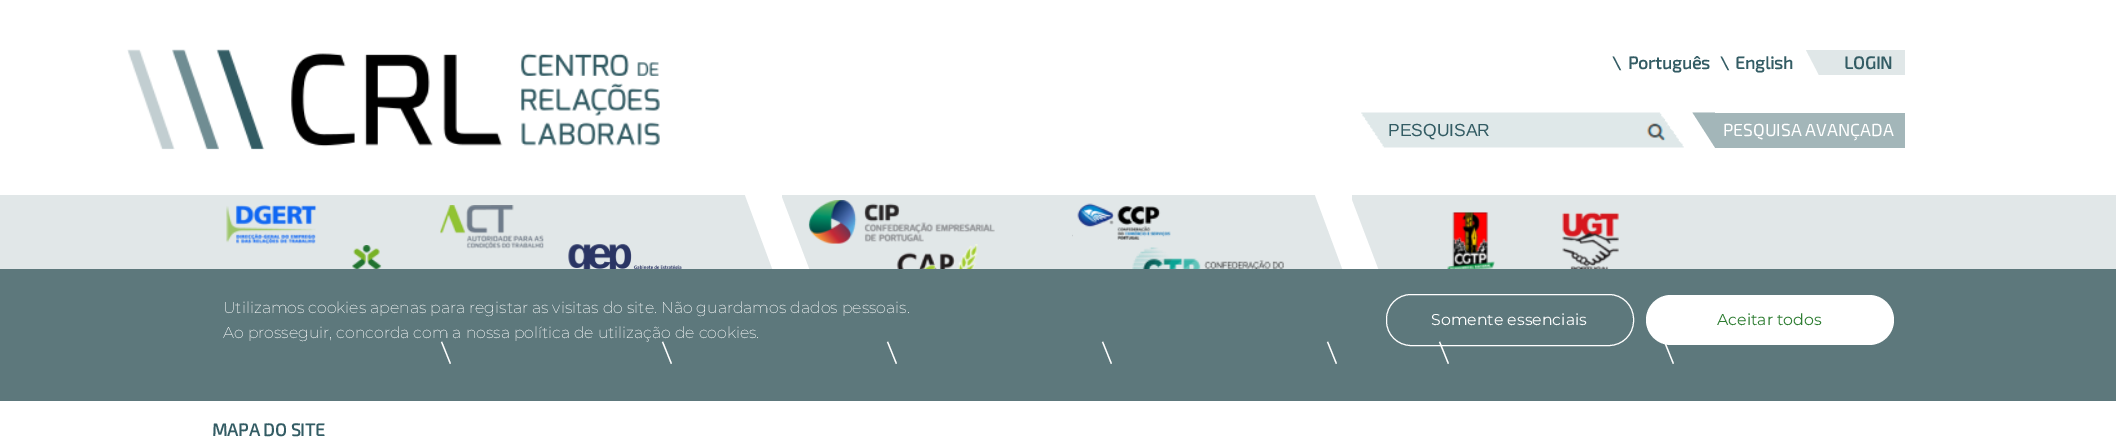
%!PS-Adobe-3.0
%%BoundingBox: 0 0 2116 446
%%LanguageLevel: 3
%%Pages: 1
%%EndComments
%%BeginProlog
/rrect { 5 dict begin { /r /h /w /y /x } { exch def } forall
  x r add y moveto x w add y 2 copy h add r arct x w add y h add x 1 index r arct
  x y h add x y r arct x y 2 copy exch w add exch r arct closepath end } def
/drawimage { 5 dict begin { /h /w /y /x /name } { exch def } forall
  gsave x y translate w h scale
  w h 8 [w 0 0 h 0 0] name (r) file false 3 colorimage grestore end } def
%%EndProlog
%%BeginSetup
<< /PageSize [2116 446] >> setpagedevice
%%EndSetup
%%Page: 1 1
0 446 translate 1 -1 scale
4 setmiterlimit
1 setgray
0 0 2116 446 rectfill
(images/1.raw) 127 49 533 101 drawimage
0.878 0.906 0.91 setrgbcolor
1819 50 86 25 rectfill
newpath 1819 50 moveto 1819 75 lineto 1806 50 lineto closepath fill
(images/2.raw) 1361 112 323 36 drawimage
0.639 0.714 0.725 setrgbcolor
1715 113 190 35 rectfill
newpath 1715 112.5 moveto 1715 147.5 lineto 1692.5 112.5 lineto closepath fill
0.882 0.906 0.91 setrgbcolor
0 195 2116 74 rectfill
(images/3.raw) 226 204 91 40 drawimage
(images/4.raw) 440 205 104 44 drawimage
1 setgray
newpath 782 195 moveto 782 295 lineto 745 195 lineto closepath fill
(images/5.raw) 352 245 30 24 drawimage
(images/6.raw) 568 243 114 26 drawimage
newpath 781 295 moveto 781 195 lineto 819 295 lineto closepath fill
(images/7.raw) 808 200 187 44 drawimage
(images/8.raw) 1072 203 99 37 drawimage
newpath 1352 195 moveto 1352 295 lineto 1315 195 lineto closepath fill
(images/9.raw) 896 244 82 25 drawimage
(images/10.raw) 1132 247 152 22 drawimage
newpath 1350 295 moveto 1350 195 lineto 1388 295 lineto closepath fill
(images/11.raw) 1447 212 48 57 drawimage
(images/12.raw) 1562 212 57 57 drawimage
0.365 0.471 0.486 setrgbcolor
0 371 2116 30 rectfill
0 269 2116 102 rectfill
1 setgray
1386.5 294.5 247 51 24.5 rrect stroke
1646 295 248 50 25 rrect fill
/Exo2-Bold [17.5 0 0 -17.5 0 0] selectfont
0.2 0.361 0.392 setrgbcolor
1612 69 moveto (\\) show
1628 69 moveto (Português) show
1720 69 moveto (\\) show
1735 69 moveto (English) show
1844 69 moveto (LOGIN) show
/LiberationSans-Regular [17.5 0 0 -17.5 0 0] selectfont
1388 136 moveto (PESQUISAR) show
/Exo2-Regular [17.5 0 0 -17.5 0 0] selectfont
1 setgray
1723 136 moveto (PESQUISA AVANÇADA) show
/Exo2-Regular [25 0 0 -25 0 0] selectfont
gsave 446 361 translate -22 rotate 0 0 moveto (|) show grestore
gsave 667 361 translate -22 rotate 0 0 moveto (|) show grestore
gsave 892 361 translate -22 rotate 0 0 moveto (|) show grestore
gsave 1107 361 translate -22 rotate 0 0 moveto (|) show grestore
gsave 1332 361 translate -22 rotate 0 0 moveto (|) show grestore
gsave 1444 361 translate -22 rotate 0 0 moveto (|) show grestore
gsave 1669 361 translate -22 rotate 0 0 moveto (|) show grestore
/Montserrat-ExtraLight [15.75 0 0 -15.75 0 0] selectfont
223 313 moveto (Utilizamos cookies apenas para registar as visitas do site. Não guardamos dados pessoais.) show
223 338 moveto (Ao prosseguir, concorda com a nossa política de utilização de cookies.) show
/Montserrat-Regular [15.75 0 0 -15.75 0 0] selectfont
1431 325 moveto (Somente essenciais) show
0.18 0.49 0.196 setrgbcolor
1717 325 moveto (Aceitar todos) show
/Exo2-Bold [17.5 0 0 -17.5 0 0] selectfont
0.2 0.361 0.392 setrgbcolor
212 436 moveto (MAPA DO SITE) show
showpage
%%EOF
